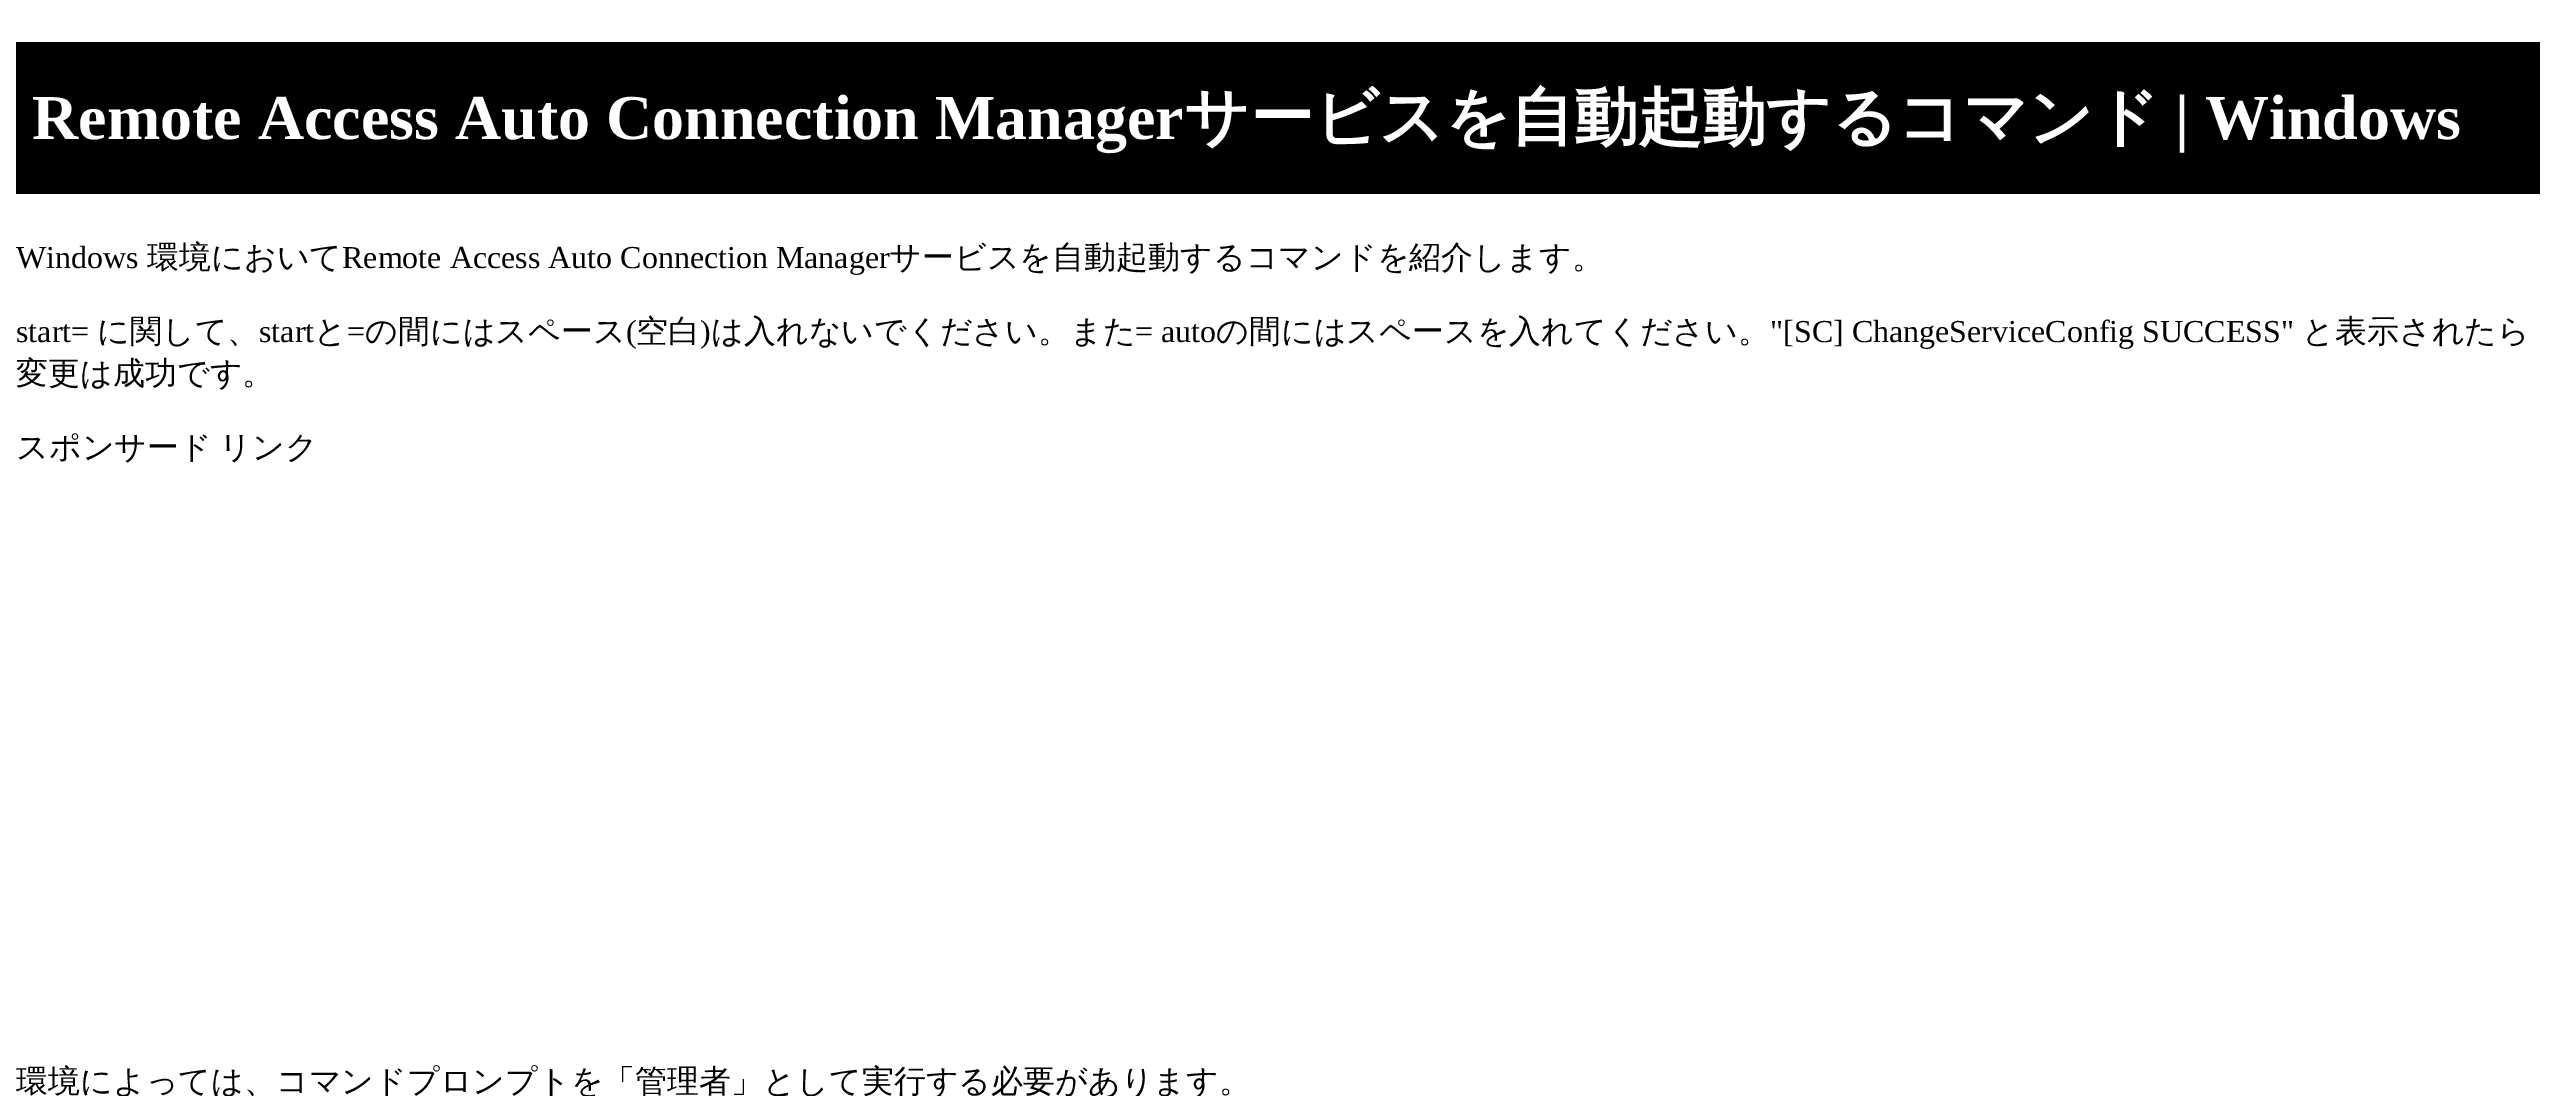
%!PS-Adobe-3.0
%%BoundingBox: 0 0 2556 1096
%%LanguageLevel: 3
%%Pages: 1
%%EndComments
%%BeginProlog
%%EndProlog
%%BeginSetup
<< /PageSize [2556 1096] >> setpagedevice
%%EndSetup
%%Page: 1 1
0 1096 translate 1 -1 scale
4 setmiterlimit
1 setgray
0 0 2556 1096 rectfill
0 setgray
16 42 2524 152 rectfill
/LiberationSerif-Bold [64 0 0 -64 0 0] selectfont
1 setgray
32 139 moveto (Remote Access Auto Connection Manager) show
/WenQuanYiZenHei-Bold [64 0 0 -64 0 0] selectfont
1184 139 moveto (サービスを自動起動するコマンド) show
/LiberationSerif-Bold [64 0 0 -64 0 0] selectfont
2175 139 moveto (| Windows) show
/LiberationSerif-Regular [32 0 0 -32 0 0] selectfont
0 setgray
16 268 moveto (Windows) show
/WenQuanYiZenHei-Medium [32 0 0 -32 0 0] selectfont
147 268 moveto (環境において) show
/LiberationSerif-Regular [32 0 0 -32 0 0] selectfont
342 268 moveto (Remote Access Auto Connection Manager) show
/WenQuanYiZenHei-Medium [32 0 0 -32 0 0] selectfont
889 268 moveto (サービスを自動起動するコマンドを紹介します。) show
/LiberationSerif-Regular [32 0 0 -32 0 0] selectfont
16 342 moveto (start=) show
/WenQuanYiZenHei-Medium [32 0 0 -32 0 0] selectfont
97 342 moveto (に関して、) show
/LiberationSerif-Regular [32 0 0 -32 0 0] selectfont
259 342 moveto (start) show
/WenQuanYiZenHei-Medium [32 0 0 -32 0 0] selectfont
314 342 moveto (と) show
/LiberationSerif-Regular [32 0 0 -32 0 0] selectfont
347 342 moveto (=) show
/WenQuanYiZenHei-Medium [32 0 0 -32 0 0] selectfont
365 342 moveto (の間にはスペース) show
/LiberationSerif-Regular [32 0 0 -32 0 0] selectfont
626 342 moveto (\() show
/WenQuanYiZenHei-Medium [32 0 0 -32 0 0] selectfont
636 342 moveto (空白) show
/LiberationSerif-Regular [32 0 0 -32 0 0] selectfont
700 342 moveto (\)) show
/WenQuanYiZenHei-Medium [32 0 0 -32 0 0] selectfont
711 342 moveto (は入れないでください。また) show
/LiberationSerif-Regular [32 0 0 -32 0 0] selectfont
1135 342 moveto (= auto) show
/WenQuanYiZenHei-Medium [32 0 0 -32 0 0] selectfont
1216 342 moveto (の間にはスペースを入れてください。) show
/LiberationSerif-Regular [32 0 0 -32 0 0] selectfont
1770 342 moveto ("[SC] ChangeServiceConfig SUCCESS") show
/WenQuanYiZenHei-Medium [32 0 0 -32 0 0] selectfont
2302 342 moveto (と表示されたら) show
16 384 moveto (変更は成功です。) show
16 458 moveto -2 0 32 (スポンサード リンク) widthshow
16 1092 moveto (環境によっては、コマンドプロンプトを「管理者」として実行する必要があります。) show
showpage
%%EOF
